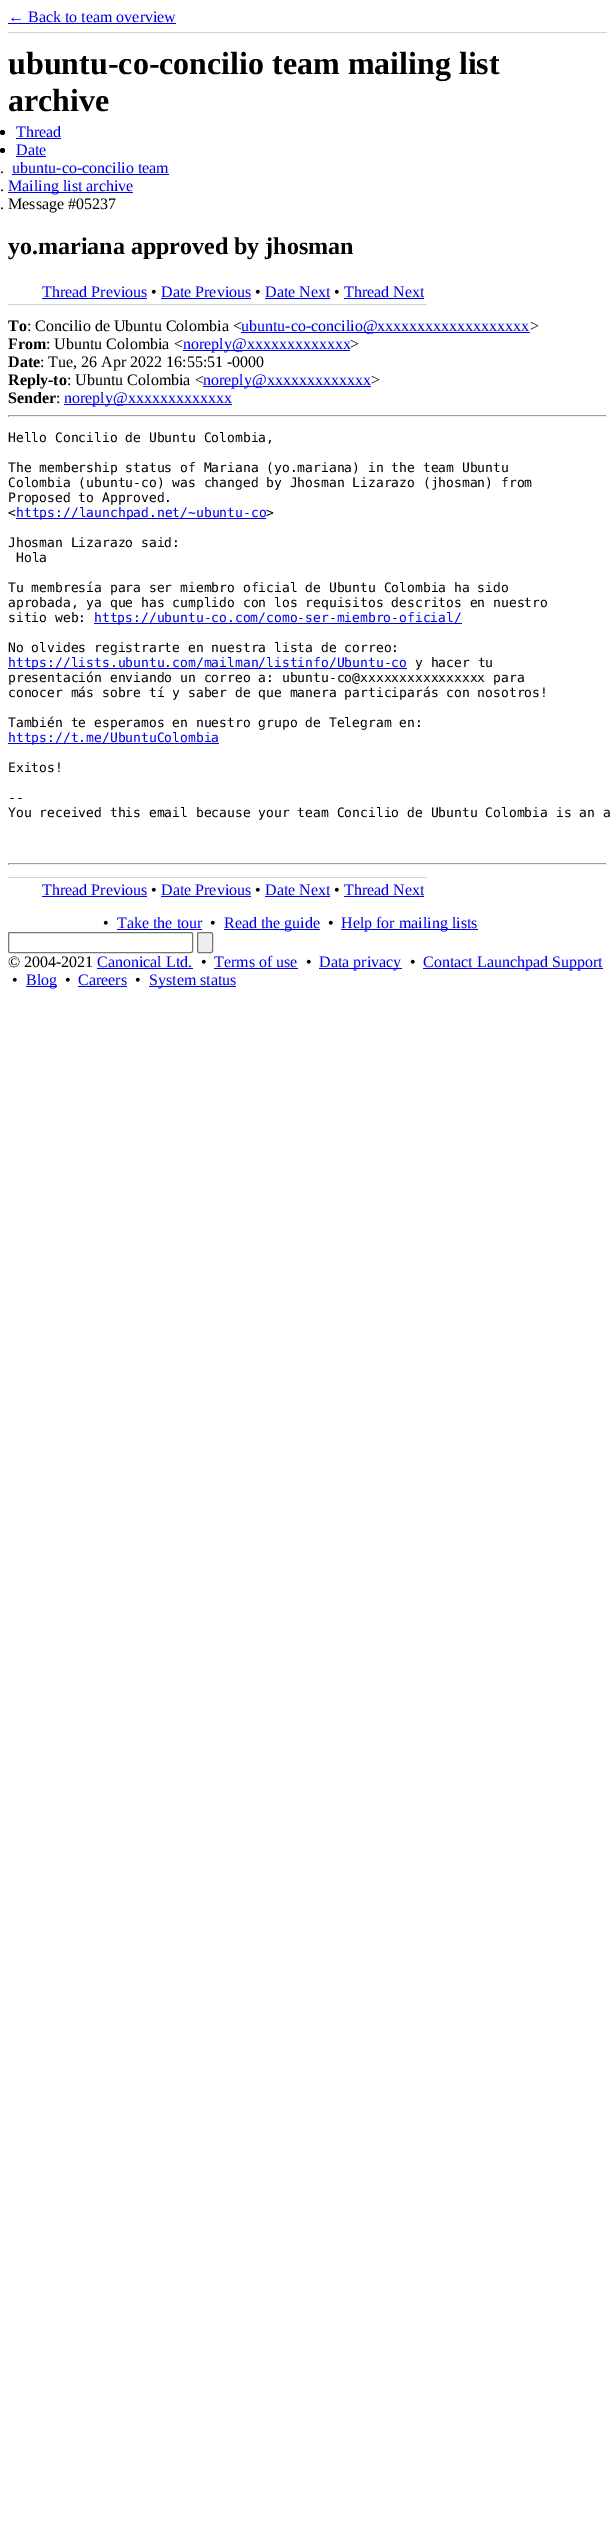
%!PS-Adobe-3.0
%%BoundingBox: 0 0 615 2542
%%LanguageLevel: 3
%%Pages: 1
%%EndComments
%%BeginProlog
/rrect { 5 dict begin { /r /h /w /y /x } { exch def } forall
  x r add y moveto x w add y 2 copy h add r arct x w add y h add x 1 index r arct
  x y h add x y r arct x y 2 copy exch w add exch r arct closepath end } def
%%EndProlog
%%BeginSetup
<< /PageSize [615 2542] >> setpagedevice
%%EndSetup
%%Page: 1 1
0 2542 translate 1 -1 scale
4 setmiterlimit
1 setgray
0 0 615 2542 rectfill
0.824 setgray
8 32 599 1 rectfill
0 0 0.933 setrgbcolor
8 23 168 1 rectfill
0 setgray
newpath 2.5 132.5 2.5 0 360 arc closepath fill
0 0 0.933 setrgbcolor
16 138 45 1 rectfill
0 setgray
newpath 2.5 150.5 2.5 0 360 arc closepath fill
0 0 0.933 setrgbcolor
16 156 30 1 rectfill
12 174 157 1 rectfill
8 192 125 1 rectfill
0.824 setgray
8 304 419 1 rectfill
0 0 0.933 setrgbcolor
42 298 105 1 rectfill
161 298 90 1 rectfill
265 298 65 1 rectfill
344 298 80 1 rectfill
241 332 289 1 rectfill
183 350 167 1 rectfill
203 386 168 1 rectfill
64 404 168 1 rectfill
0.624 setgray
8 415 599 1 rectfill
0.933 setgray
606 415 1 2 rectfill
8 416 599 1 rectfill
0.624 setgray
8 415 1 2 rectfill
0 0 0.933 setrgbcolor
16 518 250 1 rectfill
94 623 368 1 rectfill
8 668 399 1 rectfill
8 743 211 1 rectfill
0.624 setgray
8 863 599 1 rectfill
0.933 setgray
606 863 1 2 rectfill
8 864 599 1 rectfill
0.624 setgray
8 863 1 2 rectfill
0.824 setgray
8 877 419 1 rectfill
0 0 0.933 setrgbcolor
42 896 105 1 rectfill
161 896 90 1 rectfill
265 896 65 1 rectfill
344 896 80 1 rectfill
117 929 85 1 rectfill
224 929 96 1 rectfill
341 929 137 1 rectfill
0.463 setgray
8.5 932.5 184 20 1.5 rrect stroke
0.937 setgray
197.5 932.5 15 20 1.5 rrect gsave fill grestore
0.463 setgray
stroke
0 0 0.933 setrgbcolor
97 968 96 1 rectfill
214 968 84 1 rectfill
319 968 83 1 rectfill
423 968 180 1 rectfill
26 986 31 1 rectfill
78 986 49 1 rectfill
149 986 87 1 rectfill
/LiberationSerif-Regular [16 0 0 -16 0 0] selectfont
8 22 moveto (← Back to team overview) show
/LiberationSerif-Bold [32 0 0 -32 0 0] selectfont
0 setgray
8 74 moveto (ubuntu-co-concilio team mailing list) show
8 111 moveto (archive) show
/LiberationSerif-Regular [16 0 0 -16 0 0] selectfont
0 0 0.933 setrgbcolor
16 137 moveto (Thread) show
16 155 moveto (Date) show
0 setgray
0 173 moveto (.) show
0 0 0.933 setrgbcolor
12 173 moveto (ubuntu-co-concilio team) show
0 setgray
0 191 moveto (.) show
0 0 0.933 setrgbcolor
8 191 moveto (Mailing list archive) show
0 setgray
0 209 moveto (. Message #05237) show
/LiberationSerif-Bold [24 0 0 -24 0 0] selectfont
8 254 moveto (yo.mariana approved by jhosman) show
/LiberationSerif-Regular [16 0 0 -16 0 0] selectfont
0 0 0.933 setrgbcolor
42 297 moveto (Thread Previous) show
0 setgray
151 297 moveto (•) show
0 0 0.933 setrgbcolor
161 297 moveto (Date Previous) show
0 setgray
255 297 moveto (•) show
0 0 0.933 setrgbcolor
265 297 moveto (Date Next) show
0 setgray
334 297 moveto (•) show
0 0 0.933 setrgbcolor
344 297 moveto (Thread Next) show
/LiberationSerif-Bold [16 0 0 -16 0 0] selectfont
0 setgray
8 331 moveto (To) show
/LiberationSerif-Regular [16 0 0 -16 0 0] selectfont
27 331 moveto (: Concilio de Ubuntu Colombia <) show
0 0 0.933 setrgbcolor
241 331 moveto (ubuntu-co-concilio@xxxxxxxxxxxxxxxxxxx) show
0 setgray
530 331 moveto (>) show
/LiberationSerif-Bold [16 0 0 -16 0 0] selectfont
8 349 moveto (From) show
/LiberationSerif-Regular [16 0 0 -16 0 0] selectfont
46 349 moveto (: Ubuntu Colombia <) show
0 0 0.933 setrgbcolor
183 349 moveto (noreply@xxxxxxxxxxxxx) show
0 setgray
350 349 moveto (>) show
/LiberationSerif-Bold [16 0 0 -16 0 0] selectfont
8 367 moveto (Date) show
/LiberationSerif-Regular [16 0 0 -16 0 0] selectfont
40 367 moveto (: Tue, 26 Apr 2022 16:55:51 -0000) show
/LiberationSerif-Bold [16 0 0 -16 0 0] selectfont
8 385 moveto (Reply-to) show
/LiberationSerif-Regular [16 0 0 -16 0 0] selectfont
67 385 moveto (: Ubuntu Colombia <) show
0 0 0.933 setrgbcolor
203 385 moveto (noreply@xxxxxxxxxxxxx) show
0 setgray
371 385 moveto (>) show
/LiberationSerif-Bold [16 0 0 -16 0 0] selectfont
8 403 moveto (Sender) show
/LiberationSerif-Regular [16 0 0 -16 0 0] selectfont
56 403 moveto (:) show
0 0 0.933 setrgbcolor
64 403 moveto (noreply@xxxxxxxxxxxxx) show
/DejaVuSansMono-Regular [13 0 0 -13 0 0] selectfont
0 setgray
8 442 moveto (Hello Concilio de Ubuntu Colombia,) show
8 472 moveto (The membership status of Mariana \(yo.mariana\) in the team Ubuntu) show
8 487 moveto (Colombia \(ubuntu-co\) was changed by Jhosman Lizarazo \(jhosman\) from) show
8 502 moveto (Proposed to Approved.) show
8 517 moveto (<) show
0 0 0.933 setrgbcolor
16 517 moveto (https://launchpad.net/~ubuntu-co) show
0 setgray
266 517 moveto (>) show
8 547 moveto (Jhosman Lizarazo said:) show
16 562 moveto (Hola) show
8 592 moveto (Tu membresía para ser miembro oficial de Ubuntu Colombia ha sido) show
8 607 moveto (aprobada, ya que has cumplido con los requisitos descritos en nuestro) show
8 622 moveto (sitio web:) show
0 0 0.933 setrgbcolor
94 622 moveto (https://ubuntu-co.com/como-ser-miembro-oficial/) show
0 setgray
8 652 moveto (No olvides registrarte en nuestra lista de correo:) show
0 0 0.933 setrgbcolor
8 667 moveto (https://lists.ubuntu.com/mailman/listinfo/Ubuntu-co) show
0 setgray
415 667 moveto (y hacer tu) show
8 682 moveto (presentación enviando un correo a: ubuntu-co@xxxxxxxxxxxxxxxx para) show
8 697 moveto (conocer más sobre tí y saber de que manera participarás con nosotros!) show
8 727 moveto (También te esperamos en nuestro grupo de Telegram en:) show
0 0 0.933 setrgbcolor
8 742 moveto (https://t.me/UbuntuColombia) show
0 setgray
8 772 moveto (Exitos!) show
8 802 moveto (--) show
8 817 moveto (You received this email because your team Concilio de Ubuntu Colombia is an a) show
/LiberationSerif-Regular [16 0 0 -16 0 0] selectfont
0 0 0.933 setrgbcolor
42 895 moveto (Thread Previous) show
0 setgray
151 895 moveto (•) show
0 0 0.933 setrgbcolor
161 895 moveto (Date Previous) show
0 setgray
255 895 moveto (•) show
0 0 0.933 setrgbcolor
265 895 moveto (Date Next) show
0 setgray
334 895 moveto (•) show
0 0 0.933 setrgbcolor
344 895 moveto (Thread Next) show
0 setgray
103 928 moveto (•) show
0 0 0.933 setrgbcolor
117 928 moveto (Take the tour) show
0 setgray
210 928 moveto (•) show
0 0 0.933 setrgbcolor
224 928 moveto (Read the guide) show
0 setgray
328 928 moveto (•) show
0 0 0.933 setrgbcolor
341 928 moveto (Help for mailing lists) show
0 setgray
8 967 moveto (© 2004-2021) show
0 0 0.933 setrgbcolor
97 967 moveto (Canonical Ltd.) show
0 setgray
201 967 moveto (•) show
0 0 0.933 setrgbcolor
214 967 moveto (Terms of use) show
0 setgray
306 967 moveto (•) show
0 0 0.933 setrgbcolor
319 967 moveto (Data privacy) show
0 setgray
410 967 moveto (•) show
0 0 0.933 setrgbcolor
423 967 moveto (Contact Launchpad Support) show
0 setgray
12 985 moveto (•) show
0 0 0.933 setrgbcolor
26 985 moveto (Blog) show
0 setgray
65 985 moveto (•) show
0 0 0.933 setrgbcolor
78 985 moveto (Careers) show
0 setgray
135 985 moveto (•) show
0 0 0.933 setrgbcolor
149 985 moveto (System status) show
showpage
%%EOF
